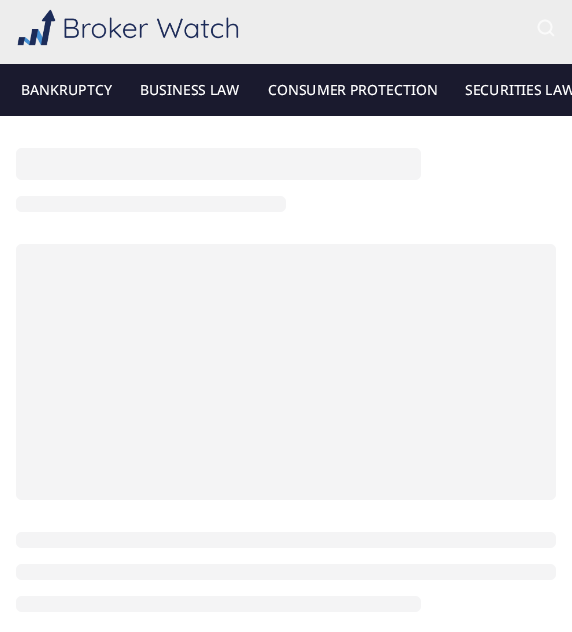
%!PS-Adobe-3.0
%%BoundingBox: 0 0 572 632
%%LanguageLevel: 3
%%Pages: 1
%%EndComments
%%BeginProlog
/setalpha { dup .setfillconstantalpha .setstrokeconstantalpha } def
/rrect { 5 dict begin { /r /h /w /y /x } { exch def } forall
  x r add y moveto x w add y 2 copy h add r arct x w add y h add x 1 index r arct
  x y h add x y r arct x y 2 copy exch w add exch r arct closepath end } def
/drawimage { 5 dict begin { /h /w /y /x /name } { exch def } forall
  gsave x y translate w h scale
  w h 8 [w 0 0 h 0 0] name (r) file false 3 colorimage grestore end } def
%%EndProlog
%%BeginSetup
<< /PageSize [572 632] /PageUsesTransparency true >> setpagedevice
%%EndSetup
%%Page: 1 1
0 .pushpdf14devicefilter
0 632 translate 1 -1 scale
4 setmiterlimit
1 setgray
0 0 572 632 rectfill
0.929 setgray
0 0 572 64 rectfill
(images/1.raw) 17 9 222 37 drawimage
0.98 setgray
1.7 setlinewidth
newpath 545 27 6.5 0 360 arc closepath stroke
0.7 setalpha
1 setgray
1 setlinecap
1 setlinejoin
newpath 553.5 35.5 moveto 550 32 lineto stroke
1 setalpha
0.102 0.102 0.18 setrgbcolor
0 64 572 52 rectfill
0.957 0.957 0.961 setrgbcolor
16 148 405 32 6 rrect fill
16 196 270 16 6 rrect fill
16 244 540 256 6 rrect fill
16 532 540 16 6 rrect fill
16 564 540 16 6 rrect fill
16 596 405 16 6 rrect fill
/NotoSans-Medium [14 0 0 -14 0 0] selectfont
1 setgray
21 95 moveto (BANKRUPTCY) show
140 95 moveto (BUSINESS LAW) show
268 95 moveto (CONSUMER PROTECTION) show
465 95 moveto (SECURITIES LAW) show
.poppdf14devicefilter showpage
%%EOF
